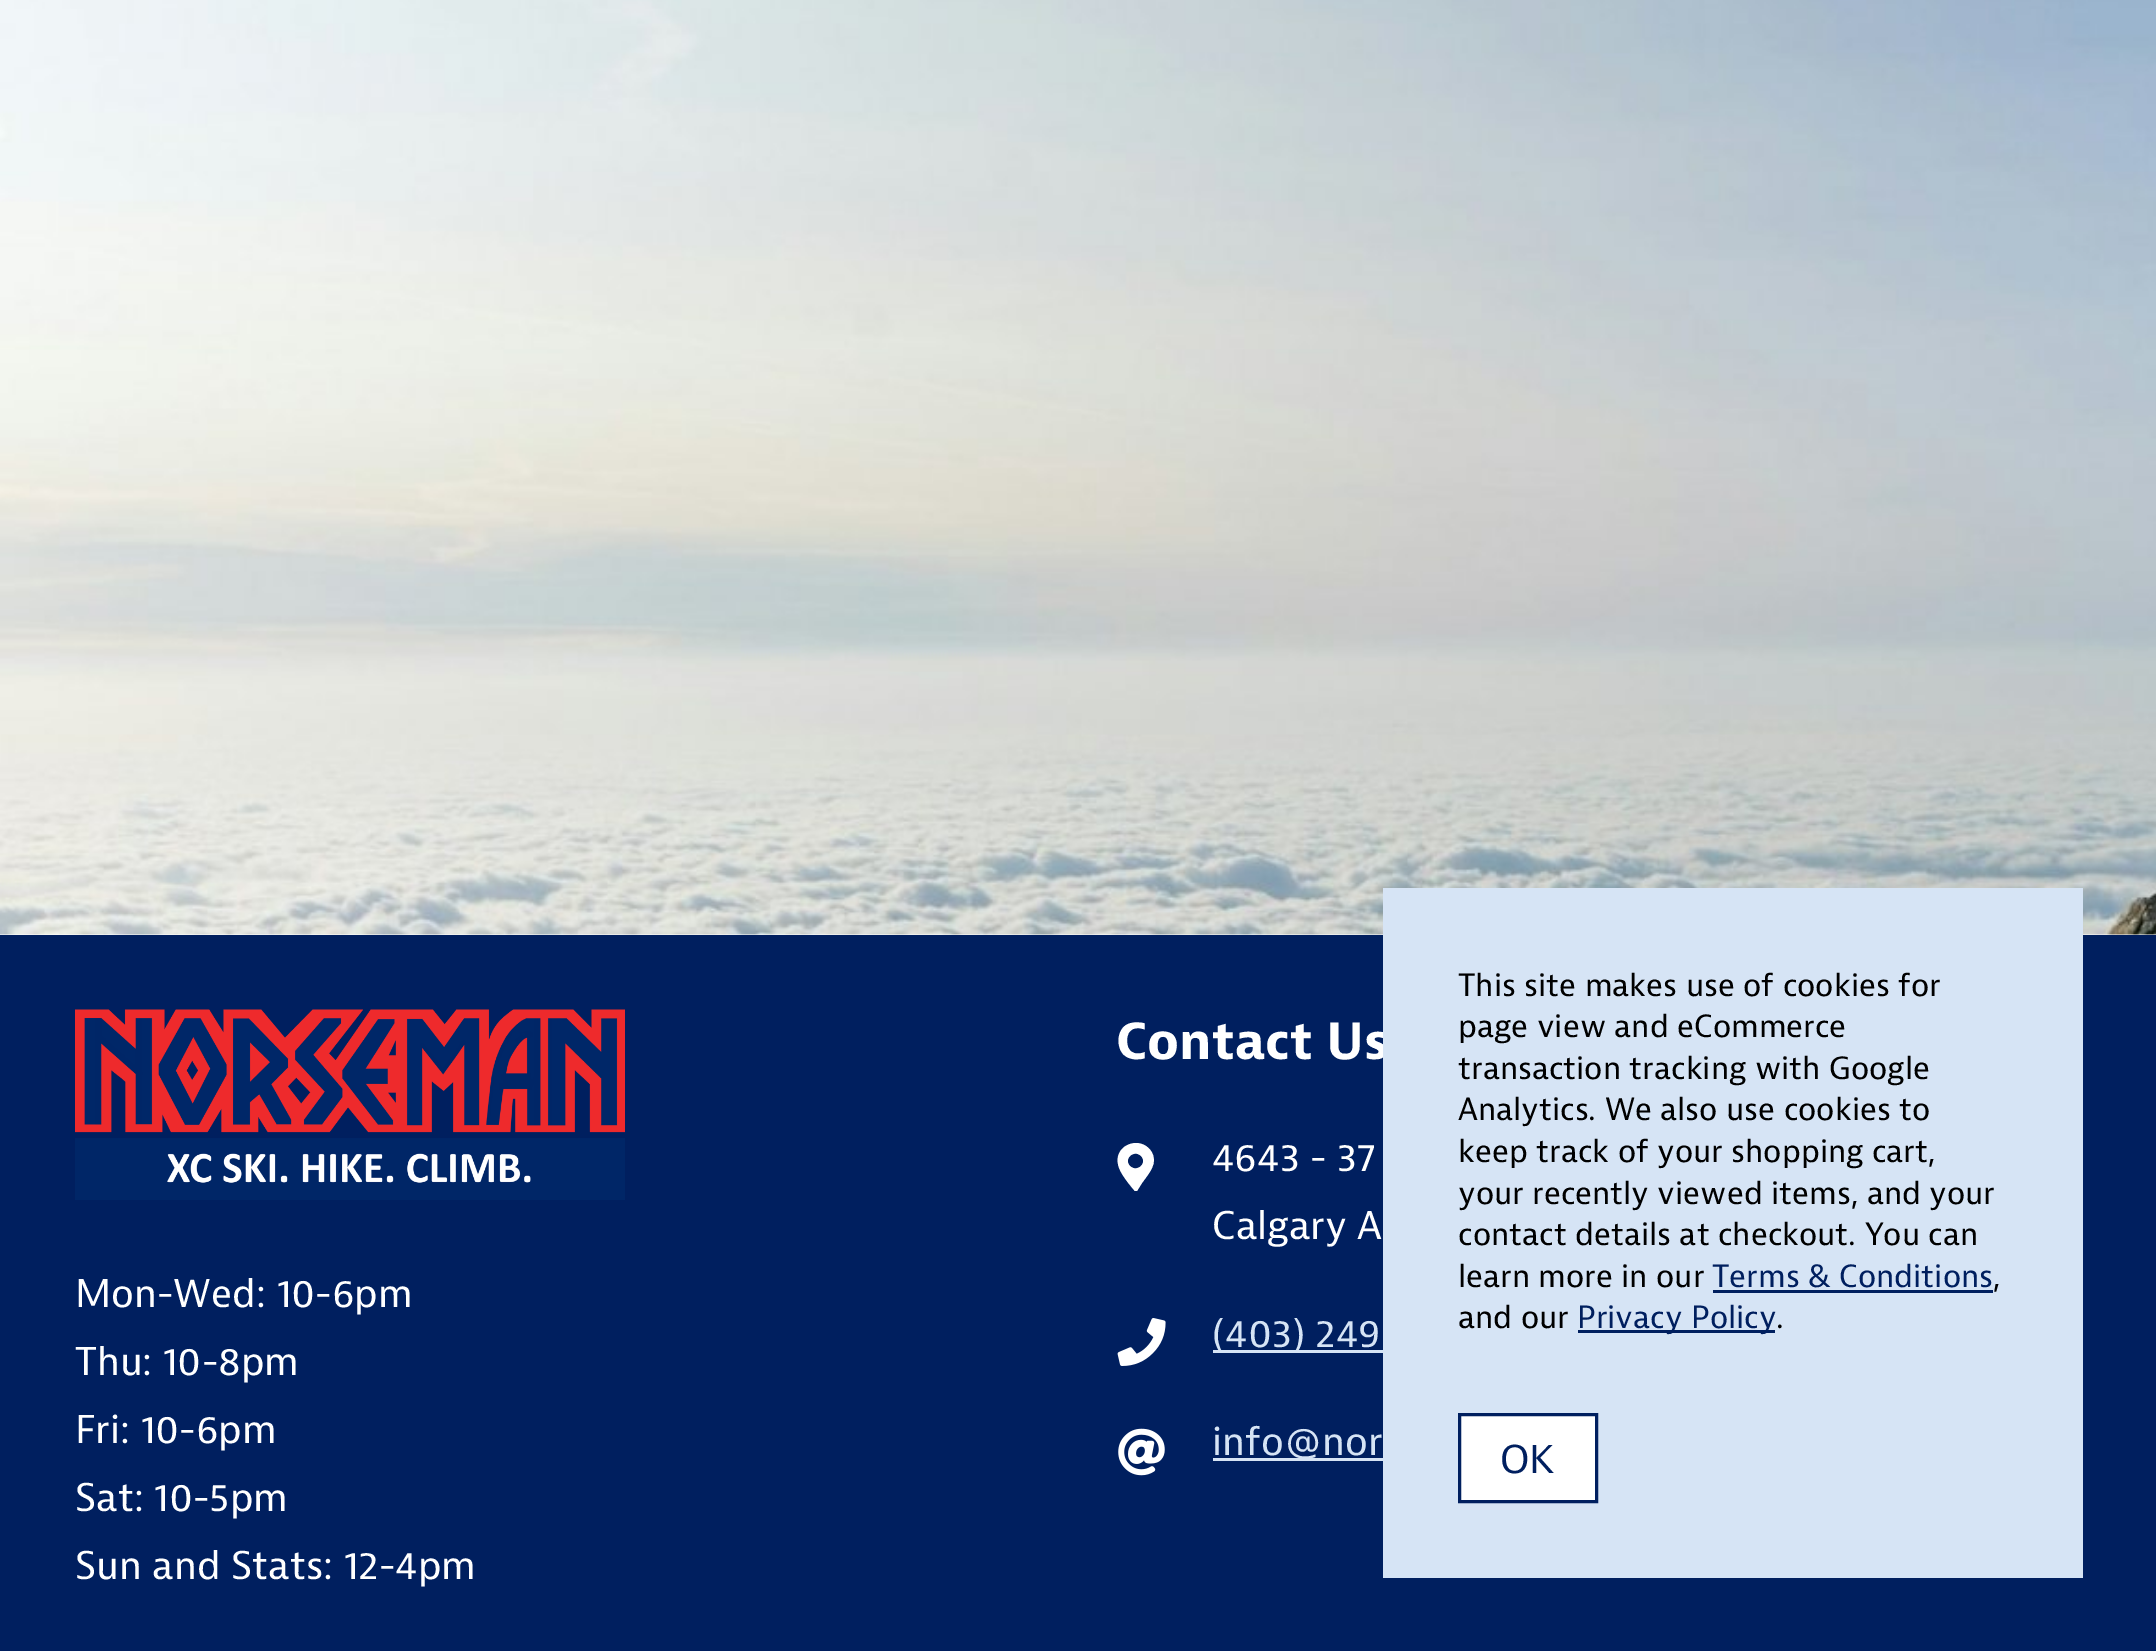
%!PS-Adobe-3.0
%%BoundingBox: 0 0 2156 1651
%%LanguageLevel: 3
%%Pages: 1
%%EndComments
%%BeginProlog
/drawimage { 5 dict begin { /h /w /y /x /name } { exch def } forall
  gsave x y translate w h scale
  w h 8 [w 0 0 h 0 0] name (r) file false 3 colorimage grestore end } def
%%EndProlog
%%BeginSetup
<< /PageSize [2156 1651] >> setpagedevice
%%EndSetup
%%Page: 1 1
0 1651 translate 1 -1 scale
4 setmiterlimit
1 setgray
0 0 2156 1651 rectfill
(images/1.raw) 0 0 2156 935 drawimage
0 0.122 0.373 setrgbcolor
0 935 2156 716 rectfill
(images/2.raw) 75 1009 550 191 drawimage
1 setgray
newpath 1134 1190 moveto 1129 1184 1119 1172 1118 1164 curveto 1114 1145 1140 1135 1151 1151 curveto 1159 1163 1149 1173 1142 1183 curveto 1137 1191 lineto 1136 1191 1134 1191 1134 1190 curveto closepath 1130 1166 moveto 1137 1173 1148 1163 1141 1156 curveto 1134 1149 1123 1159 1130 1166 curveto closepath fill
(images/3.raw) 1117 1318 49 48 drawimage
0.839 0.894 0.961 setrgbcolor
1213 1350 170 3 rectfill
(images/4.raw) 1118 1428 47 48 drawimage
1213 1458 170 3 rectfill
/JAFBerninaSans-Regular [40 0 0 -40 0 0] selectfont
1 setgray
75 1307 moveto (Mon-Wed: 10-6pm) show
75 1375 moveto (Thu: 10-8pm) show
75 1443 moveto (Fri: 10-6pm) show
75 1511 moveto (Sat: 10-5pm) show
75 1579 moveto (Sun and Stats: 12-4pm) show
/JAFBerninaSans-Bold [52 0 0 -52 0 0] selectfont
1116 1059 moveto (Contact Us) show
/JAFBerninaSans-Regular [40 0 0 -40 0 0] selectfont
1212 1171 moveto (4643 - 37) show
1212 1239 moveto (Calgary A) show
0.839 0.894 0.961 setrgbcolor
1212 1347 moveto (\(403\) 249) show
1212 1455 moveto (info@nor) show
1383 888 700 690 rectfill
/JAFBerninaSans-Regular [32 0 0 -32 0 0] selectfont
0 setgray
1458 996 moveto (This site makes use of cookies for) show
1458 1037 moveto (page view and eCommerce) show
1458 1079 moveto (transaction tracking with Google) show
1458 1120 moveto (Analytics. We also use cookies to) show
1458 1162 moveto (keep track of your shopping cart,) show
1458 1204 moveto (your recently viewed items, and your) show
1458 1245 moveto (contact details at checkout. You can) show
1458 1287 moveto (learn more in our) show
0 0.122 0.373 setrgbcolor
1712 1287 moveto (Terms & Conditions) show
1713 1290 280 3 rectfill
0 setgray
1993 1287 moveto (,) show
1458 1328 moveto (and our) show
0 0.122 0.373 setrgbcolor
1578 1330 197 3 rectfill
1577 1328 moveto (Privacy Policy) show
0 setgray
1776 1328 moveto (.) show
1 setgray
newpath 1459.5 1414.5 moveto 1596.5 1414.5 lineto 1596.5 1501.5 lineto 1459.5 1501.5 lineto closepath gsave fill grestore
0 0.122 0.373 setrgbcolor
3 setlinewidth
stroke
/JAFBerninaSans-Regular [40 0 0 -40 0 0] selectfont
1500 1473 moveto (OK) show
showpage
%%EOF
